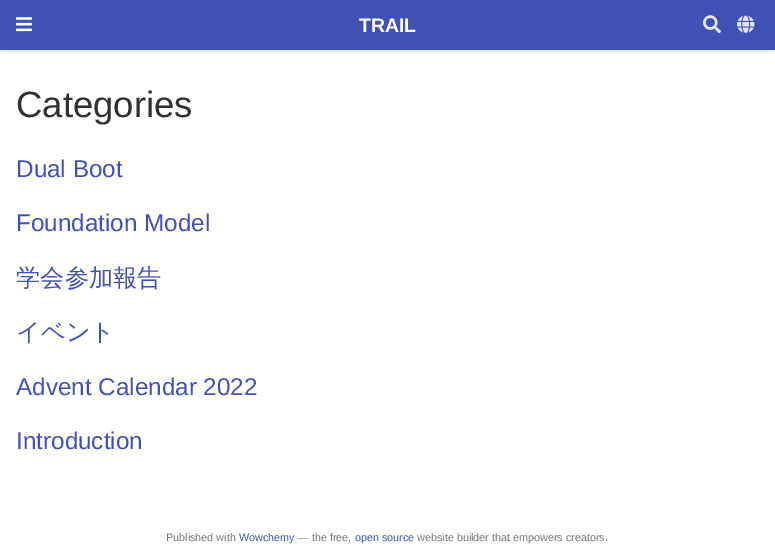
%!PS-Adobe-3.0
%%BoundingBox: 0 0 775 553
%%LanguageLevel: 3
%%Pages: 1
%%EndComments
%%BeginProlog
/setalpha { dup .setfillconstantalpha .setstrokeconstantalpha } def
/rrect { 5 dict begin { /r /h /w /y /x } { exch def } forall
  x r add y moveto x w add y 2 copy h add r arct x w add y h add x 1 index r arct
  x y h add x y r arct x y 2 copy exch w add exch r arct closepath end } def
/softshadow { 12 dict begin { /a /b /q /h /w /y /x } { exch def } forall gsave /was 0 def
  9 -2 -9 { dup b mul 4 div /e exch def 1 sub .425 mul 2.718 exch exp 1 add a .99 .min exch div /now exch def
    1 1 now sub 1 was sub div sub setalpha /was now def
    w h .min e 2 mul add 0 gt { x e sub y e sub w e 2 mul add h e 2 mul add
      q e add b .6 mul add w h .min 2 div e add .min 0 .max rrect fill } if } for grestore end } def
/drawimage { 5 dict begin { /h /w /y /x /name } { exch def } forall
  gsave x y translate w h scale
  w h 8 [w 0 0 h 0 0] name (r) file false 3 colorimage grestore end } def
%%EndProlog
%%BeginSetup
<< /PageSize [775 553] /PageUsesTransparency true >> setpagedevice
%%EndSetup
%%Page: 1 1
0 .pushpdf14devicefilter
0 553 translate 1 -1 scale
4 setmiterlimit
1 setgray
0 0 775 553 rectfill
0 setgray
0 2 775 50 0 2 0.11 softshadow
0.247 0.318 0.71 setrgbcolor
0 0 775 50 rectfill
(images/1.raw) 16 17 16 15 drawimage
(images/2.raw) 703 15 18 19 drawimage
(images/3.raw) 737 15 18 18 drawimage
/LiberationSans-Bold [19.5 0 0 -19.5 0 0] selectfont
1 setgray
359 32 moveto (TRAIL) show
/LiberationSans-Regular [36.5 0 0 -36.5 0 0] selectfont
0.192 setgray
16 117 moveto (Categories) show
/LiberationSans-Regular [24.25 0 0 -24.25 0 0] selectfont
0.247 0.318 0.71 setrgbcolor
16 177 moveto (Dual Boot) show
16 231 moveto (Foundation Model) show
/WenQuanYiZenHei-Medium [24.25 0 0 -24.25 0 0] selectfont
16 286 moveto (学会参加報告) show
16 340 moveto (イベント) show
/LiberationSans-Regular [24.25 0 0 -24.25 0 0] selectfont
16 395 moveto (Advent Calendar 2022) show
16 449 moveto (Introduction) show
/LiberationSans-Regular [10.8 0 0 -10.8 0 0] selectfont
0.459 setgray
166 541 moveto (Published with) show
0.247 0.318 0.71 setrgbcolor
239 541 moveto (Wowchemy) show
0.459 setgray
298 541 moveto (— the free,) show
0.247 0.318 0.71 setrgbcolor
355 541 moveto (open source) show
0.459 setgray
417 541 moveto (website builder that empowers creators.) show
.poppdf14devicefilter showpage
%%EOF
